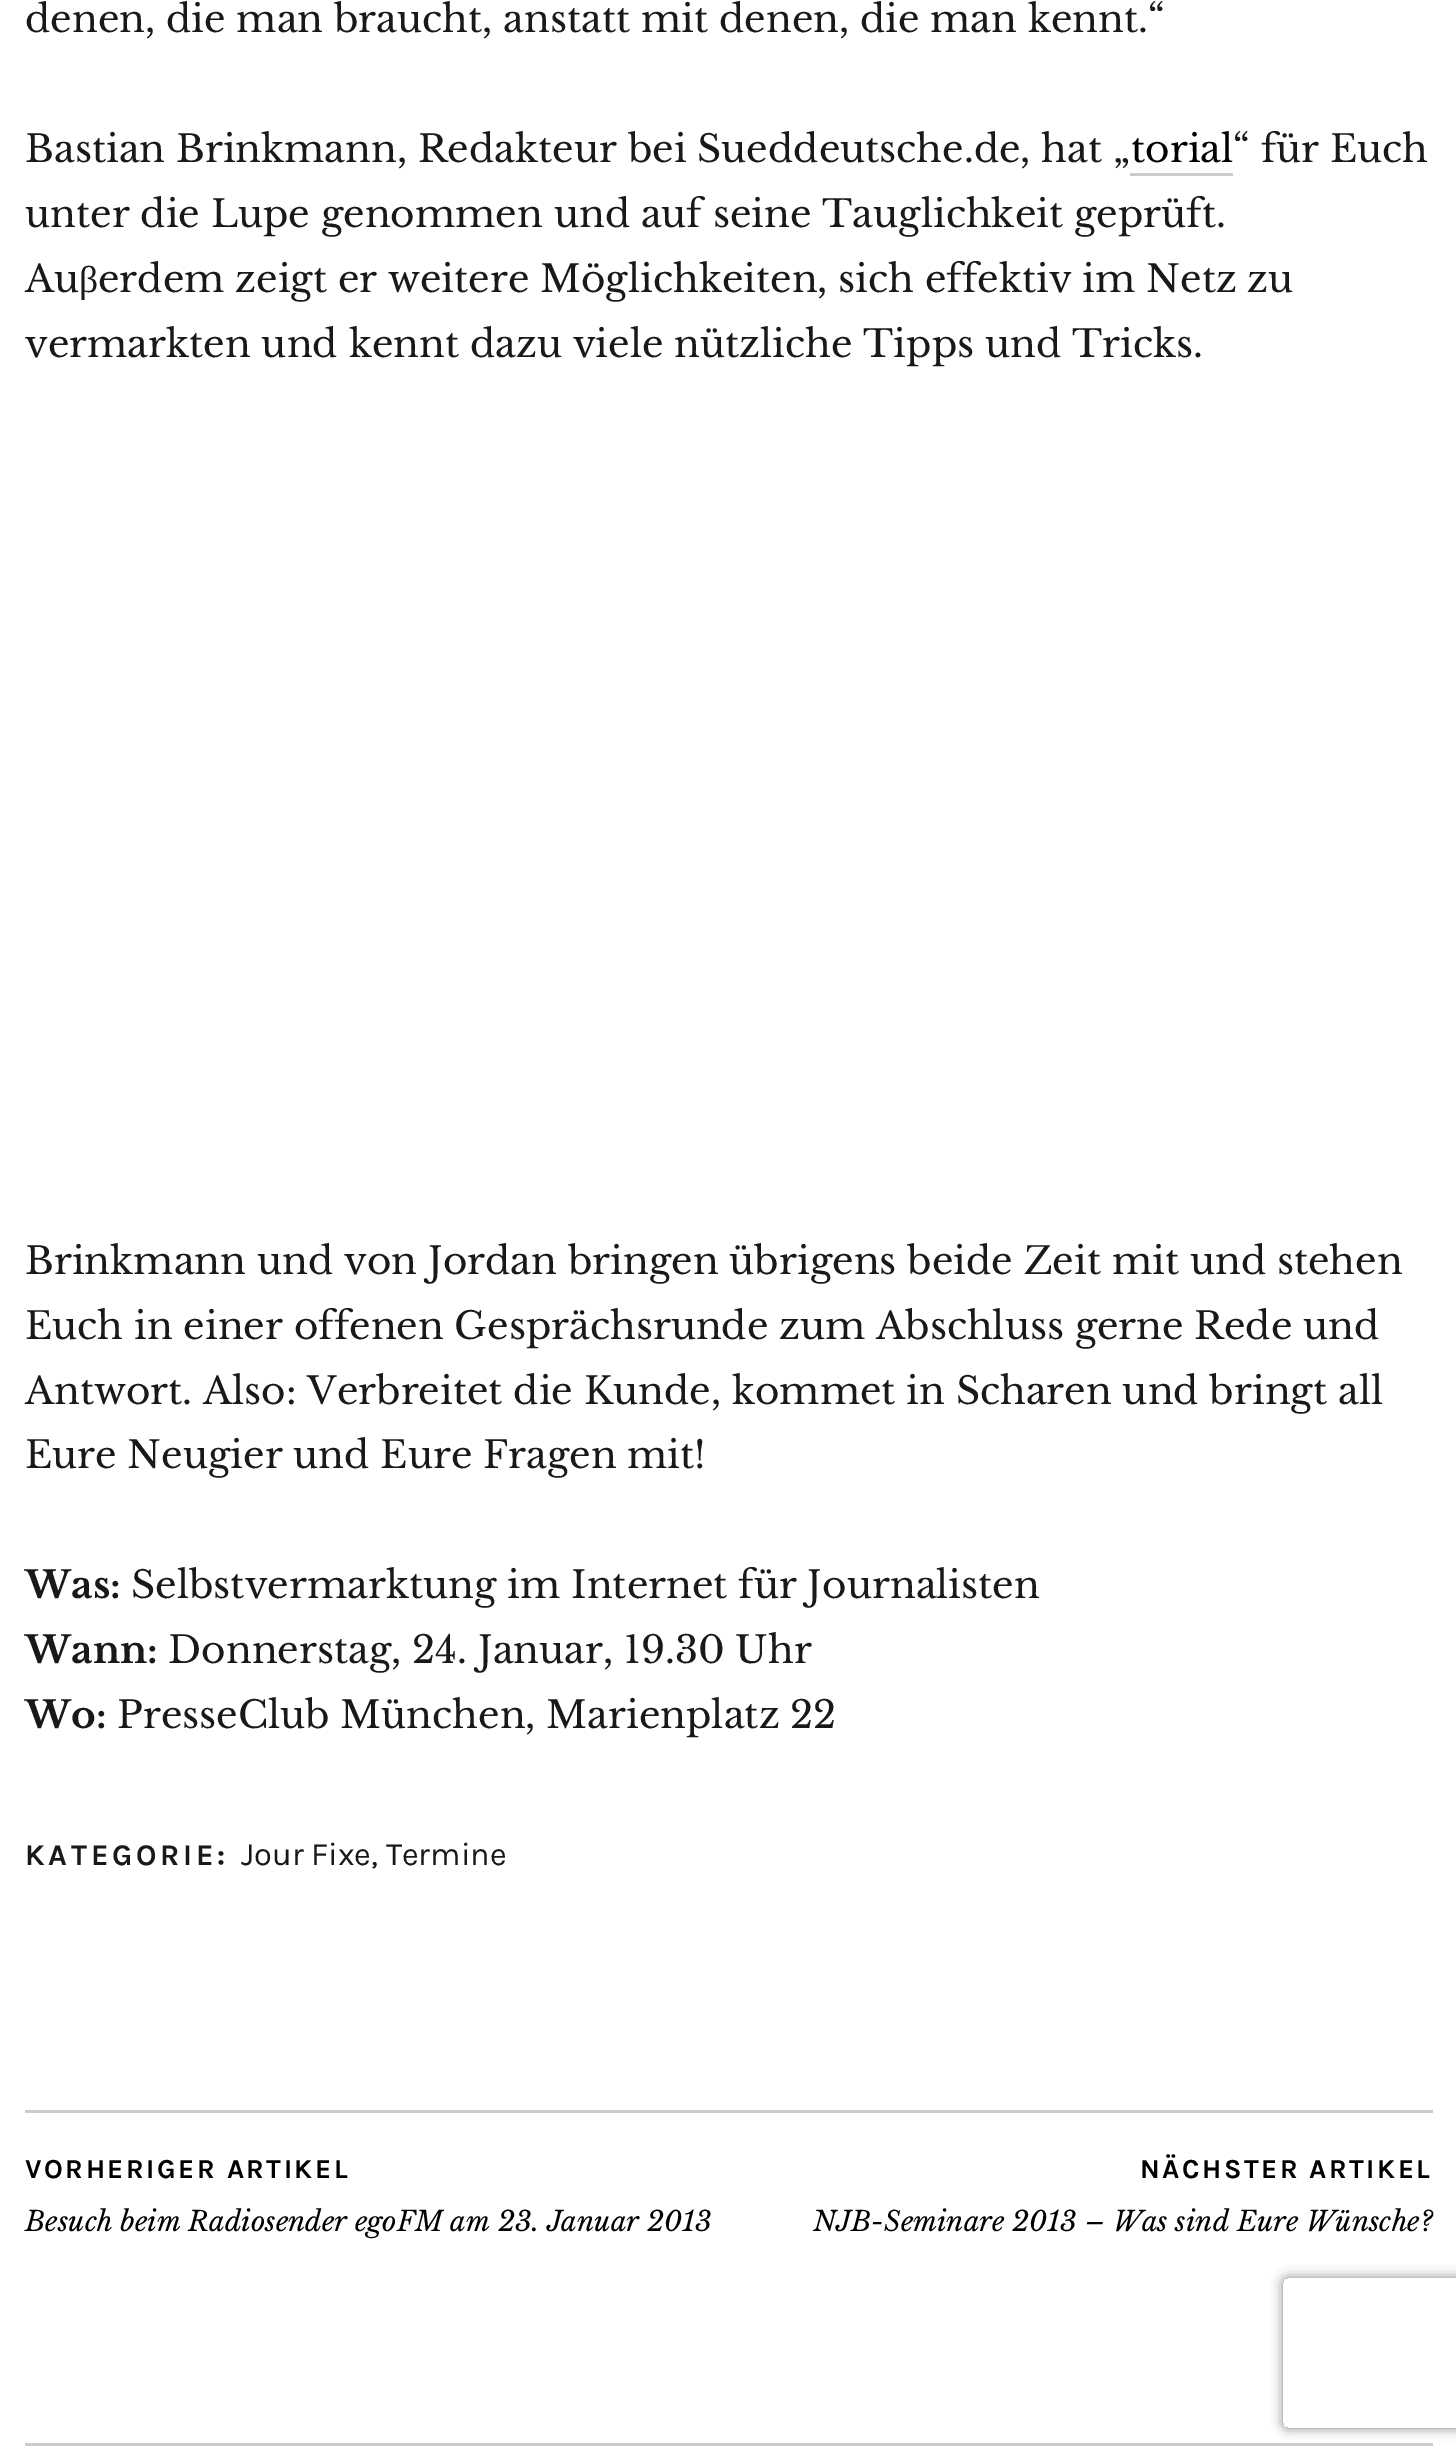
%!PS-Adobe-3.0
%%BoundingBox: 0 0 1456 2461
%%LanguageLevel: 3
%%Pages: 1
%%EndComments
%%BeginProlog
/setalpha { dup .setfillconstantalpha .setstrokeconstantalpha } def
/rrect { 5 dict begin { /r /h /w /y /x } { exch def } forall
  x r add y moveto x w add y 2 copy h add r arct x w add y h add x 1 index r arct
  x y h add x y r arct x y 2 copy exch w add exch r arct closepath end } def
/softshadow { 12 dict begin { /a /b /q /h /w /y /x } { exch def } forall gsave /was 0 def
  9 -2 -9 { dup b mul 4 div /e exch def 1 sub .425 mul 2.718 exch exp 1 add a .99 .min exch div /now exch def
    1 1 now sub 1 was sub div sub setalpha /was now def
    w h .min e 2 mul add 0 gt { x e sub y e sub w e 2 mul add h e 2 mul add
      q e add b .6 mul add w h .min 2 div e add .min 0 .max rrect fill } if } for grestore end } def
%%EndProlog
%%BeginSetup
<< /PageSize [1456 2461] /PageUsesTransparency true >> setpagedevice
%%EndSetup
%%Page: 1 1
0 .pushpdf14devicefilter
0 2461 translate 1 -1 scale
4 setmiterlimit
1 setgray
0 0 1456 2461 rectfill
0.8 setgray
1130 173 103 3 rectfill
25 2110 1408 3 rectfill
25 2443 1408 3 rectfill
gsave
newpath 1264 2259 moveto 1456 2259 lineto 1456 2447 lineto 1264 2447 lineto closepath 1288 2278 moveto 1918 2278 lineto 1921 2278 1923 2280 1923 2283 curveto 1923 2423 lineto 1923 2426 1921 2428 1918 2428 curveto 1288 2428 lineto 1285 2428 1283 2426 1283 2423 curveto 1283 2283 lineto 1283 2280 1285 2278 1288 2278 curveto closepath eoclip newpath
0.502 setgray
1283 2278 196 150 5 6 1 softshadow
grestore
/LibreBaskerville-Regular [37.5 0 0 -37.5 0 0] selectfont
0.098 setgray
25 32 moveto (denen, die man braucht, anstatt mit denen, die man kennt.“) show
25 162 moveto (Bastian Brinkmann, Redakteur bei Sueddeutsche.de, hat „) show
0 setgray
1131 162 moveto (torial) show
0.098 setgray
1233 162 moveto (“ für Euch) show
25 227 moveto (unter die Lupe genommen und auf seine Tauglichkeit geprüft.) show
25 292 moveto (Au) show
/LiberationSerif-Regular [37.5 0 0 -37.5 0 0] selectfont
79 292 moveto (β) show
/LibreBaskerville-Regular [37.5 0 0 -37.5 0 0] selectfont
98 292 moveto (erdem zeigt er weitere Möglichkeiten, sich effektiv im Netz zu) show
25 357 moveto (vermarkten und kennt dazu viele nützliche Tipps und Tricks.) show
25 1274 moveto (Brinkmann und von Jordan bringen übrigens beide Zeit mit und stehen) show
25 1339 moveto (Euch in einer offenen Gesprächsrunde zum Abschluss gerne Rede und) show
25 1404 moveto (Antwort. Also: Verbreitet die Kunde, kommet in Scharen und bringt all) show
25 1468 moveto (Eure Neugier und Eure Fragen mit!) show
/LibreBaskerville-Bold [37.5 0 0 -37.5 0 0] selectfont
25 1598 moveto (Was:) show
/LibreBaskerville-Regular [37.5 0 0 -37.5 0 0] selectfont
131 1598 moveto (Selbstvermarktung im Internet für Journalisten) show
/LibreBaskerville-Bold [37.5 0 0 -37.5 0 0] selectfont
25 1663 moveto (Wann:) show
/LibreBaskerville-Regular [37.5 0 0 -37.5 0 0] selectfont
168 1663 moveto (Donnerstag, 24. Januar, 19.30 Uhr) show
/LibreBaskerville-Bold [37.5 0 0 -37.5 0 0] selectfont
25 1728 moveto (Wo:) show
/LibreBaskerville-Regular [37.5 0 0 -37.5 0 0] selectfont
117 1728 moveto (PresseClub München, Marienplatz 22) show
/Karla-Bold [30 0 0 -30 0 0] selectfont
25 1865 moveto 3.75 0 (KATEGORIE:) ashow
/Karla-Regular [32.5 0 0 -32.5 0 0] selectfont
241 1865 moveto (Jour Fixe, Termine) show
/Karla-Bold [27.5 0 0 -27.5 0 0] selectfont
0 setgray
25 2178 moveto 2.5 0 (VORHERIGER ARTIKEL) ashow
/LibreBaskerville-Italic [27.5 0 0 -27.5 0 0] selectfont
25 2231 moveto (Besuch beim Radiosender egoFM am 23. Januar 2013) show
/Karla-Bold [27.5 0 0 -27.5 0 0] selectfont
1140 2178 moveto 2.5 0 (NÄCHSTER ARTIKEL) ashow
/LibreBaskerville-Italic [27.5 0 0 -27.5 0 0] selectfont
813 2231 moveto (NJB-Seminare 2013 – Was sind Eure Wünsche?) show
.poppdf14devicefilter showpage
%%EOF
